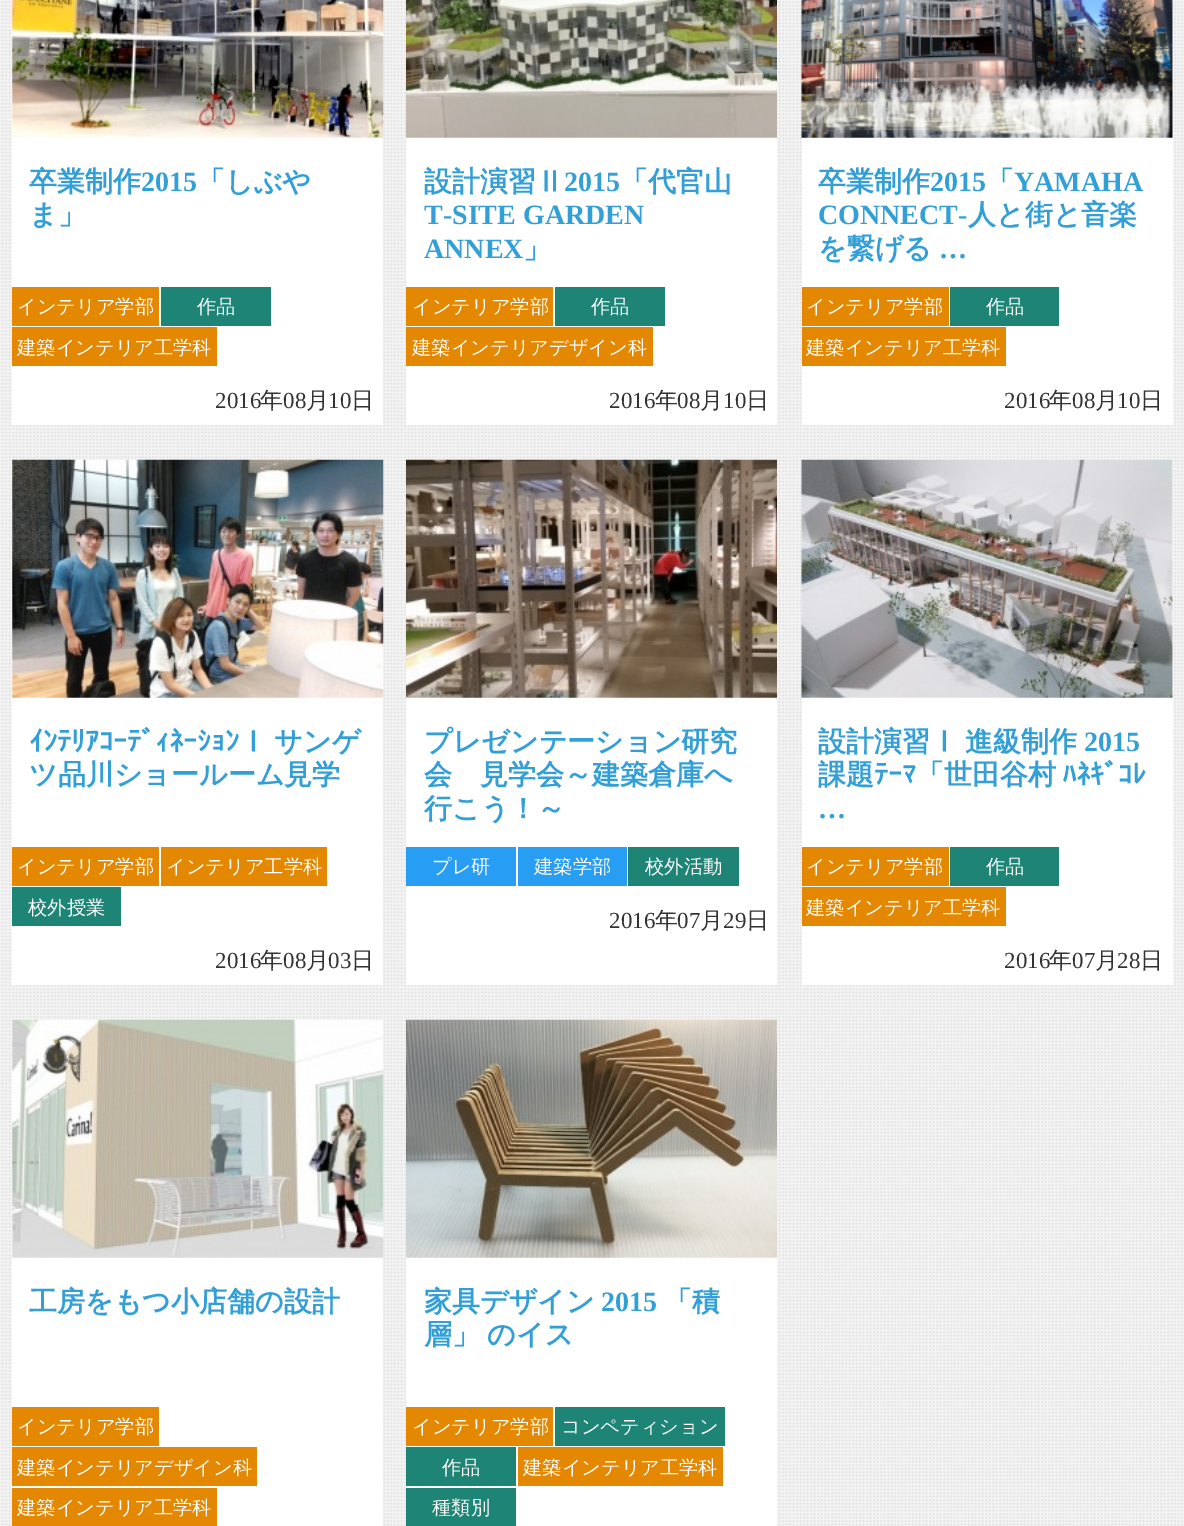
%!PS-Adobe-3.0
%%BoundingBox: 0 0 1184 1526
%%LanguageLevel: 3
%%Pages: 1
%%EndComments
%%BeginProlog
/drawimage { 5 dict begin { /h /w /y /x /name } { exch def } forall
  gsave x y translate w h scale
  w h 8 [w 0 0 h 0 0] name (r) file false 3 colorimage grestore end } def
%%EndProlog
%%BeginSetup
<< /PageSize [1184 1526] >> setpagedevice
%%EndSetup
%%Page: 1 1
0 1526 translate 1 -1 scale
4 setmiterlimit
1 setgray
0 0 1184 1526 rectfill
(images/1.raw) 0 0 1184 1526 drawimage
12 0 371 425 rectfill
(images/2.raw) 12 0 372 138 drawimage
0.89 0.533 0 setrgbcolor
12 287 147 39 rectfill
0.118 0.518 0.463 setrgbcolor
161 287 110 39 rectfill
0.89 0.533 0 setrgbcolor
12 327 205 39 rectfill
1 setgray
406 137 371 288 rectfill
(images/3.raw) 406 0 371 138 drawimage
0.89 0.533 0 setrgbcolor
406 287 147 39 rectfill
0.118 0.518 0.463 setrgbcolor
555 287 110 39 rectfill
0.89 0.533 0 setrgbcolor
406 327 247 39 rectfill
1 setgray
802 0 371 425 rectfill
(images/4.raw) 801 0 372 138 drawimage
0.89 0.533 0 setrgbcolor
802 287 147 39 rectfill
0.118 0.518 0.463 setrgbcolor
950 287 109 39 rectfill
0.89 0.533 0 setrgbcolor
802 327 204 39 rectfill
1 setgray
12 460 371 525 rectfill
(images/5.raw) 12 459 372 239 drawimage
0.89 0.533 0 setrgbcolor
12 847 147 39 rectfill
161 847 166 39 rectfill
0.118 0.518 0.463 setrgbcolor
12 887 109 39 rectfill
1 setgray
406 697 371 288 rectfill
(images/6.raw) 406 459 371 239 drawimage
0.153 0.616 0.957 setrgbcolor
406 847 110 39 rectfill
518 847 109 39 rectfill
0.118 0.518 0.463 setrgbcolor
628 847 111 39 rectfill
1 setgray
802 460 371 525 rectfill
(images/7.raw) 801 459 372 239 drawimage
0.89 0.533 0 setrgbcolor
802 847 147 39 rectfill
0.118 0.518 0.463 setrgbcolor
950 847 109 39 rectfill
0.89 0.533 0 setrgbcolor
802 887 204 39 rectfill
1 setgray
12 1020 371 506 rectfill
(images/8.raw) 12 1019 372 239 drawimage
0.89 0.533 0 setrgbcolor
12 1407 147 39 rectfill
12 1447 245 39 rectfill
12 1488 205 38 rectfill
1 setgray
406 1257 371 269 rectfill
(images/9.raw) 406 1019 371 239 drawimage
0.89 0.533 0 setrgbcolor
406 1407 147 39 rectfill
0.118 0.518 0.463 setrgbcolor
555 1407 170 39 rectfill
406 1447 110 39 rectfill
0.89 0.533 0 setrgbcolor
518 1447 205 39 rectfill
0.118 0.518 0.463 setrgbcolor
406 1488 110 38 rectfill
/WenQuanYiZenHei-Bold [28 0 0 -28 0 0] selectfont
0.196 0.624 0.839 setrgbcolor
29 191 moveto (卒業制作) show
/LiberationSerif-Bold [28 0 0 -28 0 0] selectfont
141 191 moveto (2015) show
/WenQuanYiZenHei-Bold [28 0 0 -28 0 0] selectfont
197 191 moveto (「しぶや) show
29 224 moveto (ま」) show
/WenQuanYiZenHei-Medium [19.25 0 0 -19.25 0 0] selectfont
1 setgray
17 313 moveto (インテリア学部) show
197 313 moveto (作品) show
17 354 moveto (建築インテリア工学科) show
/LiberationSerif-Regular [23 0 0 -23 0 0] selectfont
0.2 setgray
215 408 moveto (2016) show
/WenQuanYiZenHei-Medium [23 0 0 -23 0 0] selectfont
260 408 moveto (年) show
/LiberationSerif-Regular [23 0 0 -23 0 0] selectfont
283 408 moveto (08) show
/WenQuanYiZenHei-Medium [23 0 0 -23 0 0] selectfont
306 408 moveto (月) show
/LiberationSerif-Regular [23 0 0 -23 0 0] selectfont
328 408 moveto (10) show
/WenQuanYiZenHei-Medium [23 0 0 -23 0 0] selectfont
351 408 moveto (日) show
/WenQuanYiZenHei-Bold [28 0 0 -28 0 0] selectfont
0.196 0.624 0.839 setrgbcolor
424 191 moveto (設計演習Ⅱ) show
/LiberationSerif-Bold [28 0 0 -28 0 0] selectfont
564 191 moveto (2015) show
/WenQuanYiZenHei-Bold [28 0 0 -28 0 0] selectfont
620 191 moveto (「代官山) show
/LiberationSerif-Bold [28 0 0 -28 0 0] selectfont
424 224 moveto (T-SITE GARDEN) show
424 258 moveto (ANNEX) show
/WenQuanYiZenHei-Bold [28 0 0 -28 0 0] selectfont
523 258 moveto (」) show
/WenQuanYiZenHei-Medium [19.25 0 0 -19.25 0 0] selectfont
1 setgray
412 313 moveto (インテリア学部) show
591 313 moveto (作品) show
412 354 moveto (建築インテリアデザイン科) show
/LiberationSerif-Regular [23 0 0 -23 0 0] selectfont
0.2 setgray
609 408 moveto (2016) show
/WenQuanYiZenHei-Medium [23 0 0 -23 0 0] selectfont
655 408 moveto (年) show
/LiberationSerif-Regular [23 0 0 -23 0 0] selectfont
677 408 moveto (08) show
/WenQuanYiZenHei-Medium [23 0 0 -23 0 0] selectfont
700 408 moveto (月) show
/LiberationSerif-Regular [23 0 0 -23 0 0] selectfont
723 408 moveto (10) show
/WenQuanYiZenHei-Medium [23 0 0 -23 0 0] selectfont
746 408 moveto (日) show
/WenQuanYiZenHei-Bold [28 0 0 -28 0 0] selectfont
0.196 0.624 0.839 setrgbcolor
818 191 moveto (卒業制作) show
/LiberationSerif-Bold [28 0 0 -28 0 0] selectfont
930 191 moveto (2015) show
/WenQuanYiZenHei-Bold [28 0 0 -28 0 0] selectfont
986 191 moveto (「) show
/LiberationSerif-Bold [28 0 0 -28 0 0] selectfont
1014 191 moveto (YAMAHA) show
818 224 moveto (CONNECT-) show
/WenQuanYiZenHei-Bold [28 0 0 -28 0 0] selectfont
968 224 moveto (人と街と音楽) show
818 258 moveto (を繋げる) show
/LiberationSerif-Bold [28 0 0 -28 0 0] selectfont
939 258 moveto (…) show
/WenQuanYiZenHei-Medium [19.25 0 0 -19.25 0 0] selectfont
1 setgray
806 313 moveto (インテリア学部) show
986 313 moveto (作品) show
806 354 moveto (建築インテリア工学科) show
/LiberationSerif-Regular [23 0 0 -23 0 0] selectfont
0.2 setgray
1004 408 moveto (2016) show
/WenQuanYiZenHei-Medium [23 0 0 -23 0 0] selectfont
1049 408 moveto (年) show
/LiberationSerif-Regular [23 0 0 -23 0 0] selectfont
1072 408 moveto (08) show
/WenQuanYiZenHei-Medium [23 0 0 -23 0 0] selectfont
1095 408 moveto (月) show
/LiberationSerif-Regular [23 0 0 -23 0 0] selectfont
1117 408 moveto (10) show
/WenQuanYiZenHei-Medium [23 0 0 -23 0 0] selectfont
1140 408 moveto (日) show
/IPAPGothic-Bold [28 0 0 -28 0 0] selectfont
0.196 0.624 0.839 setrgbcolor
29 751 moveto (ｲﾝﾃﾘｱｺｰﾃﾞｨﾈｰｼｮﾝ) show
/WenQuanYiZenHei-Bold [28 0 0 -28 0 0] selectfont
239 751 moveto -1 0 32 (Ⅰ サンゲ) widthshow
29 784 moveto (ツ品川ショールーム見学) show
/WenQuanYiZenHei-Medium [19.25 0 0 -19.25 0 0] selectfont
1 setgray
17 873 moveto (インテリア学部) show
166 873 moveto (インテリア工学科) show
28 914 moveto (校外授業) show
/LiberationSerif-Regular [23 0 0 -23 0 0] selectfont
0.2 setgray
215 968 moveto (2016) show
/WenQuanYiZenHei-Medium [23 0 0 -23 0 0] selectfont
260 968 moveto (年) show
/LiberationSerif-Regular [23 0 0 -23 0 0] selectfont
283 968 moveto (08) show
/WenQuanYiZenHei-Medium [23 0 0 -23 0 0] selectfont
306 968 moveto (月) show
/LiberationSerif-Regular [23 0 0 -23 0 0] selectfont
328 968 moveto (03) show
/WenQuanYiZenHei-Medium [23 0 0 -23 0 0] selectfont
351 968 moveto (日) show
/WenQuanYiZenHei-Bold [28 0 0 -28 0 0] selectfont
0.196 0.624 0.839 setrgbcolor
424 751 moveto (プレゼンテーション研究) show
424 784 moveto (会　見学会～建築倉庫へ) show
424 818 moveto (行こう！～) show
/WenQuanYiZenHei-Medium [19.25 0 0 -19.25 0 0] selectfont
1 setgray
432 873 moveto (プレ研) show
534 873 moveto (建築学部) show
645 873 moveto (校外活動) show
/LiberationSerif-Regular [23 0 0 -23 0 0] selectfont
0.2 setgray
609 928 moveto (2016) show
/WenQuanYiZenHei-Medium [23 0 0 -23 0 0] selectfont
655 928 moveto (年) show
/LiberationSerif-Regular [23 0 0 -23 0 0] selectfont
677 928 moveto (07) show
/WenQuanYiZenHei-Medium [23 0 0 -23 0 0] selectfont
700 928 moveto (月) show
/LiberationSerif-Regular [23 0 0 -23 0 0] selectfont
723 928 moveto (29) show
/WenQuanYiZenHei-Medium [23 0 0 -23 0 0] selectfont
746 928 moveto (日) show
/WenQuanYiZenHei-Bold [28 0 0 -28 0 0] selectfont
0.196 0.624 0.839 setrgbcolor
818 751 moveto -1 0 32 (設計演習Ⅰ 進級制作) widthshow
/LiberationSerif-Bold [28 0 0 -28 0 0] selectfont
1084 751 moveto (2015) show
/WenQuanYiZenHei-Bold [28 0 0 -28 0 0] selectfont
818 784 moveto (課題) show
/IPAPGothic-Bold [28 0 0 -28 0 0] selectfont
874 784 moveto (ﾃｰﾏ) show
/WenQuanYiZenHei-Bold [28 0 0 -28 0 0] selectfont
916 784 moveto (「世田谷村) show
/IPAPGothic-Bold [28 0 0 -28 0 0] selectfont
1062 784 moveto (ﾊﾈｷﾞｺﾚ) show
/LiberationSerif-Bold [28 0 0 -28 0 0] selectfont
818 818 moveto (…) show
/WenQuanYiZenHei-Medium [19.25 0 0 -19.25 0 0] selectfont
1 setgray
806 873 moveto (インテリア学部) show
986 873 moveto (作品) show
806 914 moveto (建築インテリア工学科) show
/LiberationSerif-Regular [23 0 0 -23 0 0] selectfont
0.2 setgray
1004 968 moveto (2016) show
/WenQuanYiZenHei-Medium [23 0 0 -23 0 0] selectfont
1049 968 moveto (年) show
/LiberationSerif-Regular [23 0 0 -23 0 0] selectfont
1072 968 moveto (07) show
/WenQuanYiZenHei-Medium [23 0 0 -23 0 0] selectfont
1095 968 moveto (月) show
/LiberationSerif-Regular [23 0 0 -23 0 0] selectfont
1117 968 moveto (28) show
/WenQuanYiZenHei-Medium [23 0 0 -23 0 0] selectfont
1140 968 moveto (日) show
/WenQuanYiZenHei-Bold [28 0 0 -28 0 0] selectfont
0.196 0.624 0.839 setrgbcolor
29 1311 moveto (工房をもつ小店舗の設計) show
/WenQuanYiZenHei-Medium [19.25 0 0 -19.25 0 0] selectfont
1 setgray
17 1433 moveto (インテリア学部) show
17 1474 moveto (建築インテリアデザイン科) show
17 1514 moveto (建築インテリア工学科) show
/WenQuanYiZenHei-Bold [28 0 0 -28 0 0] selectfont
0.196 0.624 0.839 setrgbcolor
424 1311 moveto (家具デザイン) show
/LiberationSerif-Bold [28 0 0 -28 0 0] selectfont
601 1311 moveto (2015) show
/WenQuanYiZenHei-Bold [28 0 0 -28 0 0] selectfont
664 1311 moveto (「積) show
424 1344 moveto -1 0 32 (層」 のイス) widthshow
/WenQuanYiZenHei-Medium [19.25 0 0 -19.25 0 0] selectfont
1 setgray
412 1433 moveto (インテリア学部) show
561 1433 moveto (コンペティション) show
442 1474 moveto (作品) show
523 1474 moveto (建築インテリア工学科) show
432 1514 moveto (種類別) show
showpage
%%EOF
